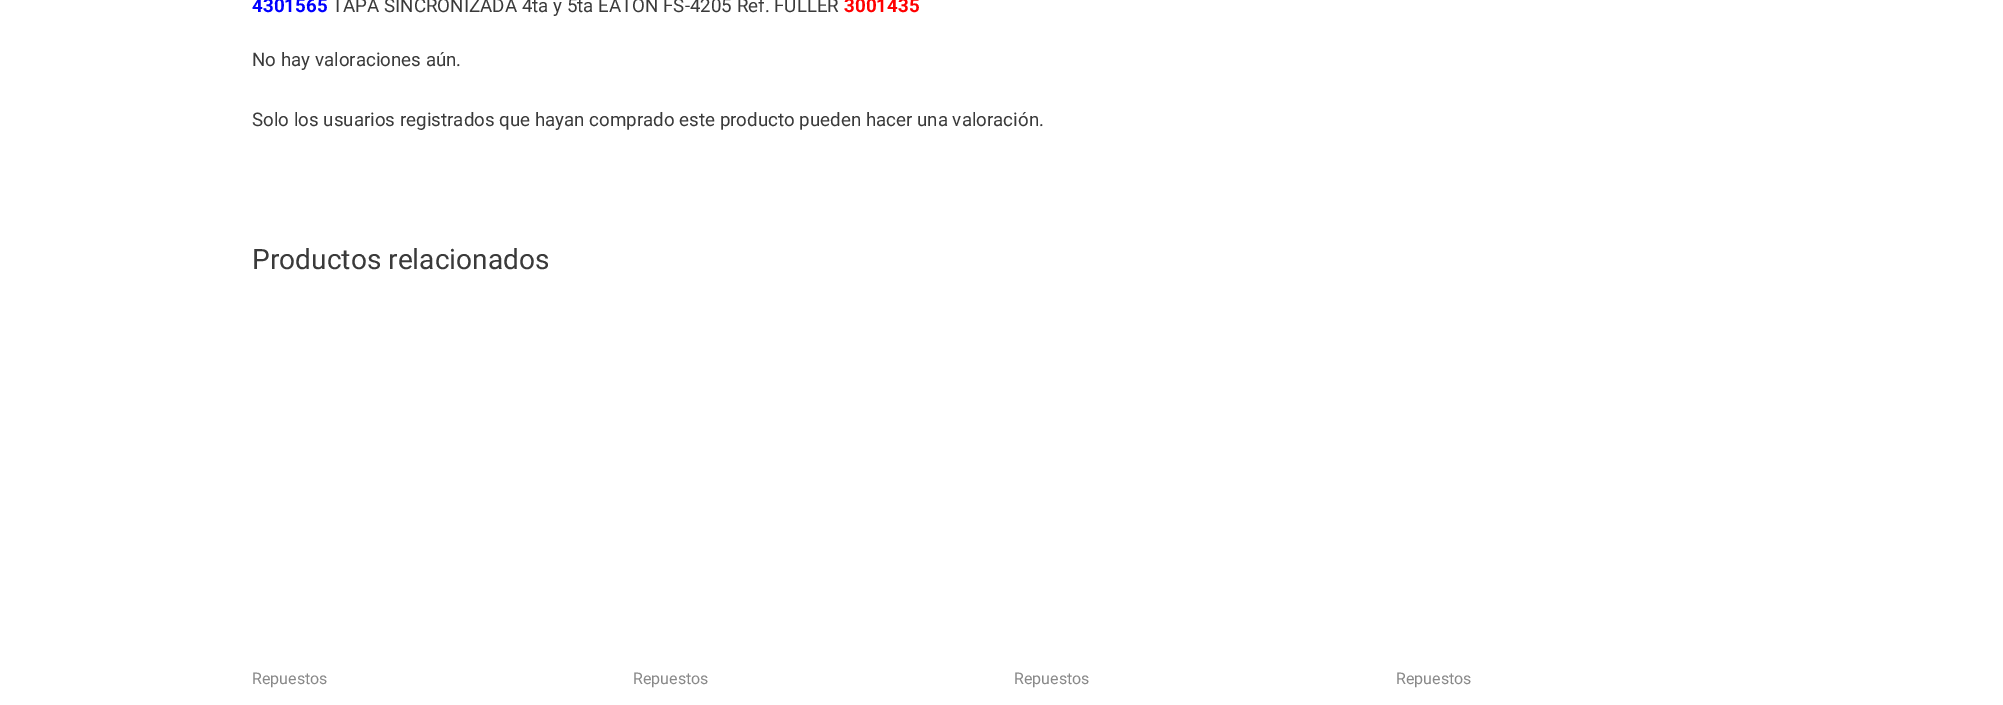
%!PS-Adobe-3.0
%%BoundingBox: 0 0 2003 705
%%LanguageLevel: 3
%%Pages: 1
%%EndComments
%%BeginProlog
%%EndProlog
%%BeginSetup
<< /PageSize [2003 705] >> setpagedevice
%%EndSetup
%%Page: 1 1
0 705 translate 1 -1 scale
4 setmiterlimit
1 setgray
0 0 2003 705 rectfill
/Roboto-Bold [18.75 0 0 -18.75 0 0] selectfont
0 0 1 setrgbcolor
252 12 moveto (4301565) show
/Roboto-Regular [18.75 0 0 -18.75 0 0] selectfont
0.227 setgray
332 12 moveto (TAPA SINCRONIZADA 4ta y 5ta EATON FS-4205 Ref. FULLER) show
/Roboto-Bold [18.75 0 0 -18.75 0 0] selectfont
1 0 0 setrgbcolor
844 12 moveto (3001435) show
/Roboto-Regular [18.75 0 0 -18.75 0 0] selectfont
0.227 setgray
252 66 moveto (No hay valoraciones aún.) show
252 126 moveto (Solo los usuarios registrados que hayan comprado este producto pueden hacer una valoración.) show
/Roboto-Regular [28.1 0 0 -28.1 0 0] selectfont
252 269 moveto (Productos relacionados) show
/Roboto-Regular [16 0 0 -16 0 0] selectfont
0.537 setgray
252 684 moveto (Repuestos) show
633 684 moveto (Repuestos) show
1014 684 moveto (Repuestos) show
1396 684 moveto (Repuestos) show
showpage
%%EOF
